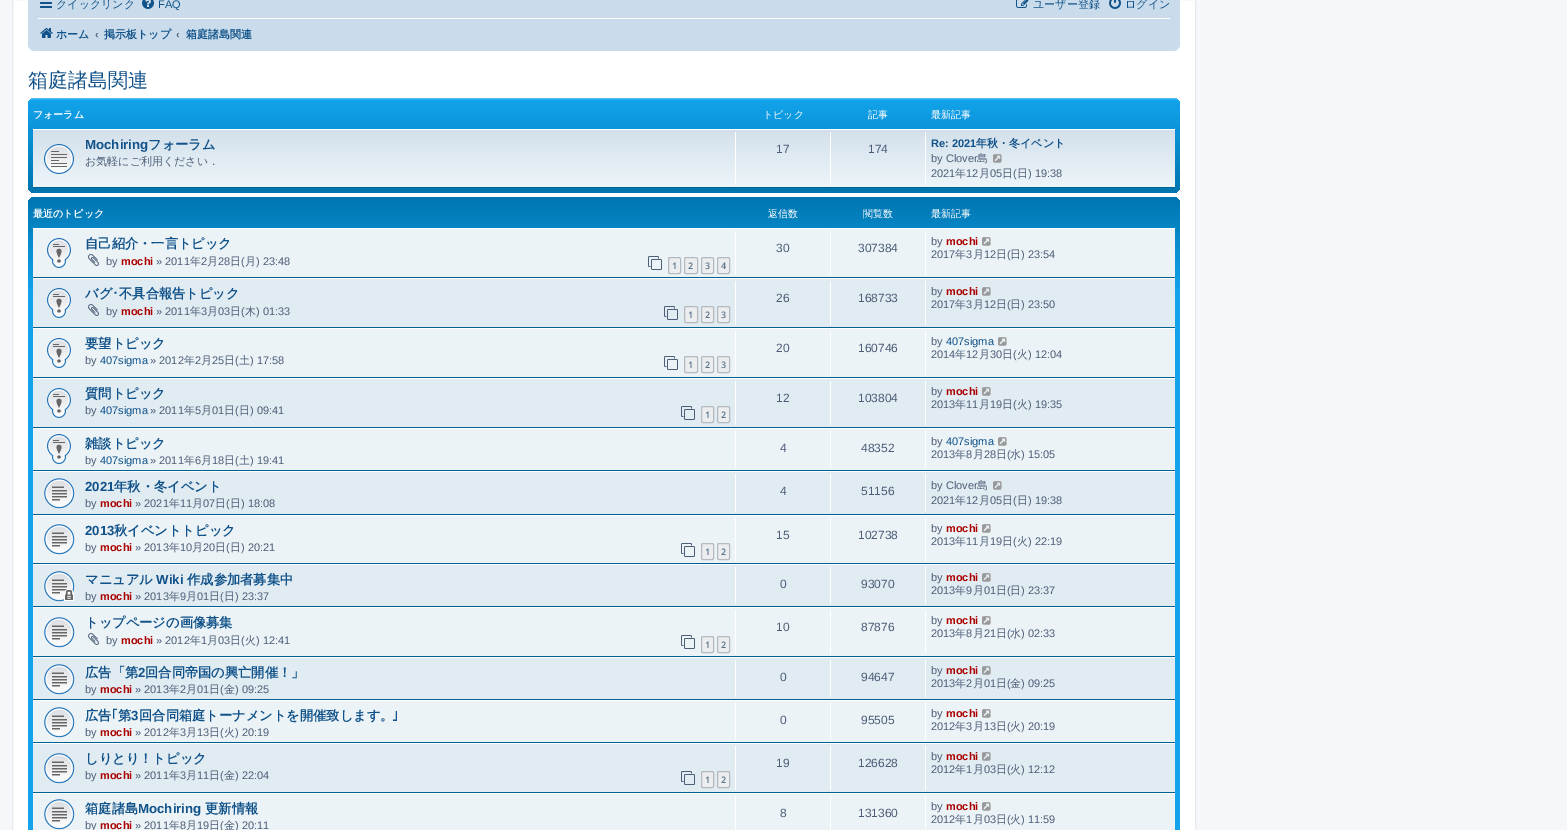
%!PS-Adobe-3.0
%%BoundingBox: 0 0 1567 830
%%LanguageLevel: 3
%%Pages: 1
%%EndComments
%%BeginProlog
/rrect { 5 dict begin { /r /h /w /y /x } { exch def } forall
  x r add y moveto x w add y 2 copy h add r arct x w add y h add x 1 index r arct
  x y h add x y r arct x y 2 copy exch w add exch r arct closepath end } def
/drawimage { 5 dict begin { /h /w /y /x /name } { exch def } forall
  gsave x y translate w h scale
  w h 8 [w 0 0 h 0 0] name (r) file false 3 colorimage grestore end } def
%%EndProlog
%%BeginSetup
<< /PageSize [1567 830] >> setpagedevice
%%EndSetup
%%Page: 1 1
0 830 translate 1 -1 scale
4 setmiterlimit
0.961 0.969 0.98 setrgbcolor
0 0 1567 830 rectfill
1 setgray
newpath 12.5 -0.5 moveto 1195.5 -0.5 lineto 1195.5 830.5 lineto 12.5 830.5 lineto closepath gsave fill grestore
0.902 0.914 0.929 setrgbcolor
stroke
0.792 0.863 0.922 setrgbcolor
28 -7 1152 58 7 rrect fill
(images/1.raw) 40 2 12 6 drawimage
(images/2.raw) 142 0 12 9 drawimage
(images/3.raw) 1016 0 14 8 drawimage
(images/4.raw) 1109 0 12 9 drawimage
1 setgray
38 18 1132 1 rectfill
(images/5.raw) 40 28 13 10 drawimage
gsave 28 98 1152 95 7 rrect clip newpath
<< /ShadingType 2 /ColorSpace /DeviceRGB /Coords [604 98 604 193] /Extend [true true] /Function << /FunctionType 3 /Domain [0 1] /Functions [<< /FunctionType 2 /Domain [0 1] /C0 [0.416 0.808 1] /C1 [0.071 0.639 0.922] /N 1 >> << /FunctionType 2 /Domain [0 1] /C0 [0.071 0.639 0.922] /C1 [0 0.463 0.694] /N 1 >> << /FunctionType 2 /Domain [0 1] /C0 [0 0.463 0.694] /C1 [0 0.463 0.694] /N 1 >>] /Bounds [0.02 0.97] /Encode [0 1 0 1 0 1] >> >> shfill grestore
gsave newpath 33 130 moveto 1175 130 lineto 1175 187 lineto 33 187 lineto closepath clip newpath
<< /ShadingType 2 /ColorSpace /DeviceRGB /Coords [604 129 604 188] /Extend [true true] /Function << /FunctionType 2 /Domain [0 1] /C0 [0.824 0.878 0.922] /C1 [0.933 0.961 0.976] /N 1 >> >> shfill grestore
33 129 1142 1 rectfill
0 0.376 0.561 setrgbcolor
33 187 1142 1 rectfill
(images/6.raw) 44 144 30 30 drawimage
1 setgray
735 132 1 53 rectfill
830 132 1 53 rectfill
925 132 1 53 rectfill
(images/7.raw) 993 154 9 9 drawimage
gsave 28 197 1152 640 7 rrect clip newpath
<< /ShadingType 2 /ColorSpace /DeviceRGB /Coords [604 197 604 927] /Extend [true true] /Function << /FunctionType 3 /Domain [0 1] /Functions [<< /FunctionType 2 /Domain [0 1] /C0 [0 0.463 0.694] /C1 [0.071 0.639 0.922] /N 1 >> << /FunctionType 2 /Domain [0 1] /C0 [0.071 0.639 0.922] /C1 [0.071 0.639 0.922] /N 1 >>] /Bounds [0.13] /Encode [0 1 0 1] >> >> shfill grestore
0.925 0.953 0.969 setrgbcolor
33 229 1142 48 rectfill
1 setgray
33 228 1142 1 rectfill
0 0.376 0.561 setrgbcolor
33 277 1142 1 rectfill
(images/8.raw) 47 238 24 30 drawimage
(images/9.raw) 88 254 11 12 drawimage
(images/10.raw) 648 256 14 14 drawimage
0.925 0.929 0.933 setrgbcolor
668.5 257.5 12 16 1.5 rrect gsave fill grestore
0.706 0.729 0.753 setrgbcolor
stroke
0.925 0.929 0.933 setrgbcolor
684.5 257.5 13 16 1.5 rrect gsave fill grestore
0.706 0.729 0.753 setrgbcolor
stroke
0.925 0.929 0.933 setrgbcolor
701.5 257.5 12 16 1.5 rrect gsave fill grestore
0.706 0.729 0.753 setrgbcolor
stroke
0.925 0.929 0.933 setrgbcolor
717.5 257.5 12 16 1.5 rrect gsave fill grestore
0.706 0.729 0.753 setrgbcolor
stroke
1 setgray
735 231 1 44 rectfill
830 231 1 44 rectfill
925 231 1 44 rectfill
(images/11.raw) 982 237 9 9 drawimage
0.882 0.922 0.949 setrgbcolor
33 279 1142 48 rectfill
1 setgray
33 278 1142 1 rectfill
0 0.376 0.561 setrgbcolor
33 327 1142 1 rectfill
(images/12.raw) 47 288 24 30 drawimage
(images/13.raw) 88 304 11 12 drawimage
(images/14.raw) 664 306 14 14 drawimage
0.925 0.929 0.933 setrgbcolor
684.5 306.5 13 16 1.5 rrect gsave fill grestore
0.706 0.729 0.753 setrgbcolor
stroke
0.925 0.929 0.933 setrgbcolor
701.5 306.5 12 16 1.5 rrect gsave fill grestore
0.706 0.729 0.753 setrgbcolor
stroke
0.925 0.929 0.933 setrgbcolor
717.5 306.5 12 16 1.5 rrect gsave fill grestore
0.706 0.729 0.753 setrgbcolor
stroke
1 setgray
735 281 1 44 rectfill
830 281 1 44 rectfill
925 281 1 44 rectfill
(images/15.raw) 982 287 9 9 drawimage
0.925 0.953 0.969 setrgbcolor
33 329 1142 48 rectfill
1 setgray
33 328 1142 1 rectfill
0 0.376 0.561 setrgbcolor
33 377 1142 1 rectfill
(images/8.raw) 47 338 24 30 drawimage
(images/10.raw) 664 356 14 14 drawimage
0.925 0.929 0.933 setrgbcolor
684.5 356.5 13 16 1.5 rrect gsave fill grestore
0.706 0.729 0.753 setrgbcolor
stroke
0.925 0.929 0.933 setrgbcolor
701.5 356.5 12 16 1.5 rrect gsave fill grestore
0.706 0.729 0.753 setrgbcolor
stroke
0.925 0.929 0.933 setrgbcolor
717.5 356.5 12 16 1.5 rrect gsave fill grestore
0.706 0.729 0.753 setrgbcolor
stroke
1 setgray
735 331 1 44 rectfill
830 331 1 44 rectfill
925 331 1 44 rectfill
(images/11.raw) 998 337 9 9 drawimage
0.882 0.922 0.949 setrgbcolor
33 379 1142 48 rectfill
1 setgray
33 378 1142 1 rectfill
0 0.376 0.561 setrgbcolor
33 427 1142 1 rectfill
(images/12.raw) 47 388 24 30 drawimage
(images/14.raw) 681 406 14 14 drawimage
0.925 0.929 0.933 setrgbcolor
701.5 406.5 12 16 1.5 rrect gsave fill grestore
0.706 0.729 0.753 setrgbcolor
stroke
0.925 0.929 0.933 setrgbcolor
717.5 406.5 12 16 1.5 rrect gsave fill grestore
0.706 0.729 0.753 setrgbcolor
stroke
1 setgray
735 381 1 44 rectfill
830 381 1 44 rectfill
925 381 1 44 rectfill
(images/15.raw) 982 387 9 9 drawimage
0.925 0.953 0.969 setrgbcolor
33 429 1142 41 rectfill
1 setgray
33 428 1142 1 rectfill
0 0.376 0.561 setrgbcolor
33 470 1142 1 rectfill
(images/8.raw) 47 434 24 30 drawimage
1 setgray
735 431 1 37 rectfill
830 431 1 37 rectfill
925 431 1 37 rectfill
(images/11.raw) 998 437 9 9 drawimage
0.882 0.922 0.949 setrgbcolor
33 472 1142 42 rectfill
1 setgray
33 471 1142 1 rectfill
0 0.376 0.561 setrgbcolor
33 514 1142 1 rectfill
(images/16.raw) 44 478 31 31 drawimage
1 setgray
735 474 1 38 rectfill
830 474 1 38 rectfill
925 474 1 38 rectfill
(images/15.raw) 993 481 9 9 drawimage
0.925 0.953 0.969 setrgbcolor
33 516 1142 47 rectfill
1 setgray
33 515 1142 1 rectfill
0 0.376 0.561 setrgbcolor
33 563 1142 1 rectfill
(images/17.raw) 44 524 31 31 drawimage
(images/10.raw) 681 543 14 14 drawimage
0.925 0.929 0.933 setrgbcolor
701.5 543.5 12 16 1.5 rrect gsave fill grestore
0.706 0.729 0.753 setrgbcolor
stroke
0.925 0.929 0.933 setrgbcolor
717.5 543.5 12 16 1.5 rrect gsave fill grestore
0.706 0.729 0.753 setrgbcolor
stroke
1 setgray
735 518 1 43 rectfill
830 518 1 43 rectfill
925 518 1 43 rectfill
(images/11.raw) 982 524 9 9 drawimage
0.882 0.922 0.949 setrgbcolor
33 565 1142 41 rectfill
1 setgray
33 564 1142 1 rectfill
0 0.376 0.561 setrgbcolor
33 606 1142 1 rectfill
(images/18.raw) 44 571 31 31 drawimage
1 setgray
735 567 1 37 rectfill
830 567 1 37 rectfill
925 567 1 37 rectfill
(images/15.raw) 982 573 9 9 drawimage
0.925 0.953 0.969 setrgbcolor
33 608 1142 48 rectfill
1 setgray
33 607 1142 1 rectfill
0 0.376 0.561 setrgbcolor
33 656 1142 1 rectfill
(images/17.raw) 44 617 31 31 drawimage
(images/9.raw) 88 633 11 12 drawimage
(images/10.raw) 681 635 14 14 drawimage
0.925 0.929 0.933 setrgbcolor
701.5 636.5 12 16 1.5 rrect gsave fill grestore
0.706 0.729 0.753 setrgbcolor
stroke
0.925 0.929 0.933 setrgbcolor
717.5 636.5 12 16 1.5 rrect gsave fill grestore
0.706 0.729 0.753 setrgbcolor
stroke
1 setgray
735 610 1 44 rectfill
830 610 1 44 rectfill
925 610 1 44 rectfill
(images/11.raw) 982 616 9 9 drawimage
0.882 0.922 0.949 setrgbcolor
33 658 1142 41 rectfill
1 setgray
33 657 1142 1 rectfill
0 0.376 0.561 setrgbcolor
33 699 1142 1 rectfill
(images/16.raw) 44 664 31 31 drawimage
1 setgray
735 660 1 37 rectfill
830 660 1 37 rectfill
925 660 1 37 rectfill
(images/15.raw) 982 666 9 9 drawimage
0.925 0.953 0.969 setrgbcolor
33 701 1142 41 rectfill
1 setgray
33 700 1142 1 rectfill
0 0.376 0.561 setrgbcolor
33 742 1142 1 rectfill
(images/17.raw) 44 707 31 31 drawimage
1 setgray
735 703 1 37 rectfill
830 703 1 37 rectfill
925 703 1 37 rectfill
(images/11.raw) 982 709 9 9 drawimage
0.882 0.922 0.949 setrgbcolor
33 744 1142 48 rectfill
1 setgray
33 743 1142 1 rectfill
0 0.376 0.561 setrgbcolor
33 792 1142 1 rectfill
(images/16.raw) 44 753 31 31 drawimage
(images/14.raw) 681 771 14 14 drawimage
0.925 0.929 0.933 setrgbcolor
701.5 771.5 12 16 1.5 rrect gsave fill grestore
0.706 0.729 0.753 setrgbcolor
stroke
0.925 0.929 0.933 setrgbcolor
717.5 771.5 12 16 1.5 rrect gsave fill grestore
0.706 0.729 0.753 setrgbcolor
stroke
1 setgray
735 746 1 44 rectfill
830 746 1 44 rectfill
925 746 1 44 rectfill
(images/15.raw) 982 752 9 9 drawimage
0.925 0.953 0.969 setrgbcolor
33 794 1142 36 rectfill
1 setgray
33 793 1142 1 rectfill
(images/17.raw) 44 799 31 31 drawimage
735 796 1 34 rectfill
830 796 1 34 rectfill
925 796 1 34 rectfill
(images/11.raw) 982 802 9 9 drawimage
/WenQuanYiZenHei-Medium [11 0 0 -11 0 0] selectfont
0.063 0.322 0.537 setrgbcolor
56 8 moveto (クイックリンク) show
/LiberationSans-Regular [11 0 0 -11 0 0] selectfont
158 8 moveto (FAQ) show
/WenQuanYiZenHei-Medium [11 0 0 -11 0 0] selectfont
1033 8 moveto (ユーザー登録) show
1125 8 moveto (ログイン) show
/WenQuanYiZenHei-Bold [11 0 0 -11 0 0] selectfont
56 38 moveto (ホーム) show
/LiberationSans-Bold [11 0 0 -11 0 0] selectfont
0.325 0.392 0.51 setrgbcolor
95 38 moveto (‹) show
/WenQuanYiZenHei-Bold [11 0 0 -11 0 0] selectfont
0.063 0.322 0.537 setrgbcolor
104 38 moveto (掲示板トップ) show
/LiberationSans-Bold [11 0 0 -11 0 0] selectfont
0.325 0.392 0.51 setrgbcolor
176 38 moveto (‹) show
/WenQuanYiZenHei-Bold [11 0 0 -11 0 0] selectfont
0.063 0.322 0.537 setrgbcolor
186 38 moveto (箱庭諸島関連) show
/WenQuanYiZenHei-Medium [20 0 0 -20 0 0] selectfont
28 87 moveto (箱庭諸島関連) show
/WenQuanYiZenHei-Bold [10 0 0 -10 0 0] selectfont
1 setgray
33 118 moveto (フォーラム) show
/WenQuanYiZenHei-Medium [10 0 0 -10 0 0] selectfont
763 118 moveto (トピック) show
868 118 moveto (記事) show
931 118 moveto (最新記事) show
/LiberationSans-Bold [13.25 0 0 -13.25 0 0] selectfont
0.063 0.322 0.537 setrgbcolor
85 149 moveto (Mochiring) show
/WenQuanYiZenHei-Bold [13.25 0 0 -13.25 0 0] selectfont
148 149 moveto (フォーラム) show
/WenQuanYiZenHei-Medium [11 0 0 -11 0 0] selectfont
0.298 0.365 0.467 setrgbcolor
85 165 moveto (お気軽にご利用ください．) show
/LiberationSans-Regular [12 0 0 -12 0 0] selectfont
776 153 moveto (17) show
868 153 moveto (174) show
/LiberationSans-Bold [11 0 0 -11 0 0] selectfont
0.063 0.322 0.537 setrgbcolor
931 147 moveto (Re: 2021) show
/WenQuanYiZenHei-Bold [11 0 0 -11 0 0] selectfont
976 147 moveto (年秋・冬イベント) show
/LiberationSans-Regular [11 0 0 -11 0 0] selectfont
0.298 0.365 0.467 setrgbcolor
931 162 moveto (by Clover) show
/WenQuanYiZenHei-Medium [11 0 0 -11 0 0] selectfont
977 162 moveto (島) show
/LiberationSans-Regular [11 0 0 -11 0 0] selectfont
931 177 moveto (2021) show
/WenQuanYiZenHei-Medium [11 0 0 -11 0 0] selectfont
955 177 moveto (年) show
/LiberationSans-Regular [11 0 0 -11 0 0] selectfont
966 177 moveto (12) show
/WenQuanYiZenHei-Medium [11 0 0 -11 0 0] selectfont
979 177 moveto (月) show
/LiberationSans-Regular [11 0 0 -11 0 0] selectfont
990 177 moveto (05) show
/WenQuanYiZenHei-Medium [11 0 0 -11 0 0] selectfont
1002 177 moveto (日) show
/LiberationSans-Regular [11 0 0 -11 0 0] selectfont
1013 177 moveto (\() show
/WenQuanYiZenHei-Medium [11 0 0 -11 0 0] selectfont
1017 177 moveto (日) show
/LiberationSans-Regular [11 0 0 -11 0 0] selectfont
1028 177 moveto (\) 19:38) show
/WenQuanYiZenHei-Bold [10 0 0 -10 0 0] selectfont
1 setgray
33 217 moveto (最近のトピック) show
/WenQuanYiZenHei-Medium [10 0 0 -10 0 0] selectfont
768 217 moveto (返信数) show
863 217 moveto (閲覧数) show
931 217 moveto (最新記事) show
/WenQuanYiZenHei-Bold [13.25 0 0 -13.25 0 0] selectfont
0.063 0.322 0.537 setrgbcolor
85 248 moveto (自己紹介・一言トピック) show
/LiberationSans-Regular [11 0 0 -11 0 0] selectfont
0.298 0.365 0.467 setrgbcolor
106 265 moveto (by) show
/LiberationSans-Bold [11 0 0 -11 0 0] selectfont
0.667 0 0 setrgbcolor
121 265 moveto (mochi) show
/LiberationSans-Regular [11 0 0 -11 0 0] selectfont
0.298 0.365 0.467 setrgbcolor
156 265 moveto (» 2011) show
/WenQuanYiZenHei-Medium [11 0 0 -11 0 0] selectfont
190 265 moveto (年) show
/LiberationSans-Regular [11 0 0 -11 0 0] selectfont
201 265 moveto (2) show
/WenQuanYiZenHei-Medium [11 0 0 -11 0 0] selectfont
207 265 moveto (月) show
/LiberationSans-Regular [11 0 0 -11 0 0] selectfont
218 265 moveto (28) show
/WenQuanYiZenHei-Medium [11 0 0 -11 0 0] selectfont
230 265 moveto (日) show
/LiberationSans-Regular [11 0 0 -11 0 0] selectfont
241 265 moveto (\() show
/WenQuanYiZenHei-Medium [11 0 0 -11 0 0] selectfont
245 265 moveto (月) show
/LiberationSans-Regular [11 0 0 -11 0 0] selectfont
256 265 moveto (\) 23:48) show
/OpenSans-SemiBold [9 0 0 -9 0 0] selectfont
0.361 0.459 0.549 setrgbcolor
672 269 moveto (1) show
688 269 moveto (2) show
705 269 moveto (3) show
721 269 moveto (4) show
/LiberationSans-Regular [12 0 0 -12 0 0] selectfont
0.298 0.365 0.467 setrgbcolor
776 252 moveto (30) show
858 252 moveto (307384) show
/LiberationSans-Regular [11 0 0 -11 0 0] selectfont
931 245 moveto (by) show
/LiberationSans-Bold [11 0 0 -11 0 0] selectfont
0.667 0 0 setrgbcolor
946 245 moveto (mochi) show
/LiberationSans-Regular [11 0 0 -11 0 0] selectfont
0.298 0.365 0.467 setrgbcolor
931 258 moveto (2017) show
/WenQuanYiZenHei-Medium [11 0 0 -11 0 0] selectfont
955 258 moveto (年) show
/LiberationSans-Regular [11 0 0 -11 0 0] selectfont
966 258 moveto (3) show
/WenQuanYiZenHei-Medium [11 0 0 -11 0 0] selectfont
973 258 moveto (月) show
/LiberationSans-Regular [11 0 0 -11 0 0] selectfont
984 258 moveto (12) show
/WenQuanYiZenHei-Medium [11 0 0 -11 0 0] selectfont
996 258 moveto (日) show
/LiberationSans-Regular [11 0 0 -11 0 0] selectfont
1007 258 moveto (\() show
/WenQuanYiZenHei-Medium [11 0 0 -11 0 0] selectfont
1010 258 moveto (日) show
/LiberationSans-Regular [11 0 0 -11 0 0] selectfont
1021 258 moveto (\) 23:54) show
/WenQuanYiZenHei-Bold [13.25 0 0 -13.25 0 0] selectfont
0.063 0.322 0.537 setrgbcolor
85 298 moveto (バグ) show
/IPAPGothic-Bold [13.25 0 0 -13.25 0 0] selectfont
112 298 moveto (･) show
/WenQuanYiZenHei-Bold [13.25 0 0 -13.25 0 0] selectfont
119 298 moveto (不具合報告トピック) show
/LiberationSans-Regular [11 0 0 -11 0 0] selectfont
0.298 0.365 0.467 setrgbcolor
106 315 moveto (by) show
/LiberationSans-Bold [11 0 0 -11 0 0] selectfont
0.667 0 0 setrgbcolor
121 315 moveto (mochi) show
/LiberationSans-Regular [11 0 0 -11 0 0] selectfont
0.298 0.365 0.467 setrgbcolor
156 315 moveto (» 2011) show
/WenQuanYiZenHei-Medium [11 0 0 -11 0 0] selectfont
190 315 moveto (年) show
/LiberationSans-Regular [11 0 0 -11 0 0] selectfont
201 315 moveto (3) show
/WenQuanYiZenHei-Medium [11 0 0 -11 0 0] selectfont
207 315 moveto (月) show
/LiberationSans-Regular [11 0 0 -11 0 0] selectfont
218 315 moveto (03) show
/WenQuanYiZenHei-Medium [11 0 0 -11 0 0] selectfont
230 315 moveto (日) show
/LiberationSans-Regular [11 0 0 -11 0 0] selectfont
241 315 moveto (\() show
/WenQuanYiZenHei-Medium [11 0 0 -11 0 0] selectfont
245 315 moveto (木) show
/LiberationSans-Regular [11 0 0 -11 0 0] selectfont
256 315 moveto (\) 01:33) show
/OpenSans-SemiBold [9 0 0 -9 0 0] selectfont
0.361 0.459 0.549 setrgbcolor
688 318 moveto (1) show
705 318 moveto (2) show
721 318 moveto (3) show
/LiberationSans-Regular [12 0 0 -12 0 0] selectfont
0.298 0.365 0.467 setrgbcolor
776 302 moveto (26) show
858 302 moveto (168733) show
/LiberationSans-Regular [11 0 0 -11 0 0] selectfont
931 295 moveto (by) show
/LiberationSans-Bold [11 0 0 -11 0 0] selectfont
0.667 0 0 setrgbcolor
946 295 moveto (mochi) show
/LiberationSans-Regular [11 0 0 -11 0 0] selectfont
0.298 0.365 0.467 setrgbcolor
931 308 moveto (2017) show
/WenQuanYiZenHei-Medium [11 0 0 -11 0 0] selectfont
955 308 moveto (年) show
/LiberationSans-Regular [11 0 0 -11 0 0] selectfont
966 308 moveto (3) show
/WenQuanYiZenHei-Medium [11 0 0 -11 0 0] selectfont
973 308 moveto (月) show
/LiberationSans-Regular [11 0 0 -11 0 0] selectfont
984 308 moveto (12) show
/WenQuanYiZenHei-Medium [11 0 0 -11 0 0] selectfont
996 308 moveto (日) show
/LiberationSans-Regular [11 0 0 -11 0 0] selectfont
1007 308 moveto (\() show
/WenQuanYiZenHei-Medium [11 0 0 -11 0 0] selectfont
1010 308 moveto (日) show
/LiberationSans-Regular [11 0 0 -11 0 0] selectfont
1021 308 moveto (\) 23:50) show
/WenQuanYiZenHei-Bold [13.25 0 0 -13.25 0 0] selectfont
0.063 0.322 0.537 setrgbcolor
85 348 moveto (要望トピック) show
/LiberationSans-Regular [11 0 0 -11 0 0] selectfont
0.298 0.365 0.467 setrgbcolor
85 364 moveto (by) show
0.063 0.322 0.537 setrgbcolor
100 364 moveto (407sigma) show
0.298 0.365 0.467 setrgbcolor
150 364 moveto (» 2012) show
/WenQuanYiZenHei-Medium [11 0 0 -11 0 0] selectfont
184 364 moveto (年) show
/LiberationSans-Regular [11 0 0 -11 0 0] selectfont
195 364 moveto (2) show
/WenQuanYiZenHei-Medium [11 0 0 -11 0 0] selectfont
201 364 moveto (月) show
/LiberationSans-Regular [11 0 0 -11 0 0] selectfont
212 364 moveto (25) show
/WenQuanYiZenHei-Medium [11 0 0 -11 0 0] selectfont
224 364 moveto (日) show
/LiberationSans-Regular [11 0 0 -11 0 0] selectfont
235 364 moveto (\() show
/WenQuanYiZenHei-Medium [11 0 0 -11 0 0] selectfont
239 364 moveto (土) show
/LiberationSans-Regular [11 0 0 -11 0 0] selectfont
250 364 moveto (\) 17:58) show
/OpenSans-SemiBold [9 0 0 -9 0 0] selectfont
0.361 0.459 0.549 setrgbcolor
688 368 moveto (1) show
705 368 moveto (2) show
721 368 moveto (3) show
/LiberationSans-Regular [12 0 0 -12 0 0] selectfont
0.298 0.365 0.467 setrgbcolor
776 352 moveto (20) show
858 352 moveto (160746) show
/LiberationSans-Regular [11 0 0 -11 0 0] selectfont
931 345 moveto (by) show
0.063 0.322 0.537 setrgbcolor
946 345 moveto (407sigma) show
0.298 0.365 0.467 setrgbcolor
931 358 moveto (2014) show
/WenQuanYiZenHei-Medium [11 0 0 -11 0 0] selectfont
955 358 moveto (年) show
/LiberationSans-Regular [11 0 0 -11 0 0] selectfont
966 358 moveto (12) show
/WenQuanYiZenHei-Medium [11 0 0 -11 0 0] selectfont
979 358 moveto (月) show
/LiberationSans-Regular [11 0 0 -11 0 0] selectfont
990 358 moveto (30) show
/WenQuanYiZenHei-Medium [11 0 0 -11 0 0] selectfont
1002 358 moveto (日) show
/LiberationSans-Regular [11 0 0 -11 0 0] selectfont
1013 358 moveto (\() show
/WenQuanYiZenHei-Medium [11 0 0 -11 0 0] selectfont
1017 358 moveto (火) show
/LiberationSans-Regular [11 0 0 -11 0 0] selectfont
1028 358 moveto (\) 12:04) show
/WenQuanYiZenHei-Bold [13.25 0 0 -13.25 0 0] selectfont
0.063 0.322 0.537 setrgbcolor
85 398 moveto (質問トピック) show
/LiberationSans-Regular [11 0 0 -11 0 0] selectfont
0.298 0.365 0.467 setrgbcolor
85 414 moveto (by) show
0.063 0.322 0.537 setrgbcolor
100 414 moveto (407sigma) show
0.298 0.365 0.467 setrgbcolor
150 414 moveto (» 2011) show
/WenQuanYiZenHei-Medium [11 0 0 -11 0 0] selectfont
184 414 moveto (年) show
/LiberationSans-Regular [11 0 0 -11 0 0] selectfont
195 414 moveto (5) show
/WenQuanYiZenHei-Medium [11 0 0 -11 0 0] selectfont
201 414 moveto (月) show
/LiberationSans-Regular [11 0 0 -11 0 0] selectfont
212 414 moveto (01) show
/WenQuanYiZenHei-Medium [11 0 0 -11 0 0] selectfont
224 414 moveto (日) show
/LiberationSans-Regular [11 0 0 -11 0 0] selectfont
235 414 moveto (\() show
/WenQuanYiZenHei-Medium [11 0 0 -11 0 0] selectfont
239 414 moveto (日) show
/LiberationSans-Regular [11 0 0 -11 0 0] selectfont
250 414 moveto (\) 09:41) show
/OpenSans-SemiBold [9 0 0 -9 0 0] selectfont
0.361 0.459 0.549 setrgbcolor
705 418 moveto (1) show
721 418 moveto (2) show
/LiberationSans-Regular [12 0 0 -12 0 0] selectfont
0.298 0.365 0.467 setrgbcolor
776 402 moveto (12) show
858 402 moveto (103804) show
/LiberationSans-Regular [11 0 0 -11 0 0] selectfont
931 395 moveto (by) show
/LiberationSans-Bold [11 0 0 -11 0 0] selectfont
0.667 0 0 setrgbcolor
946 395 moveto (mochi) show
/LiberationSans-Regular [11 0 0 -11 0 0] selectfont
0.298 0.365 0.467 setrgbcolor
931 408 moveto (2013) show
/WenQuanYiZenHei-Medium [11 0 0 -11 0 0] selectfont
955 408 moveto (年) show
/LiberationSans-Regular [11 0 0 -11 0 0] selectfont
966 408 moveto (11) show
/WenQuanYiZenHei-Medium [11 0 0 -11 0 0] selectfont
979 408 moveto (月) show
/LiberationSans-Regular [11 0 0 -11 0 0] selectfont
990 408 moveto (19) show
/WenQuanYiZenHei-Medium [11 0 0 -11 0 0] selectfont
1002 408 moveto (日) show
/LiberationSans-Regular [11 0 0 -11 0 0] selectfont
1013 408 moveto (\() show
/WenQuanYiZenHei-Medium [11 0 0 -11 0 0] selectfont
1017 408 moveto (火) show
/LiberationSans-Regular [11 0 0 -11 0 0] selectfont
1028 408 moveto (\) 19:35) show
/WenQuanYiZenHei-Bold [13.25 0 0 -13.25 0 0] selectfont
0.063 0.322 0.537 setrgbcolor
85 448 moveto (雑談トピック) show
/LiberationSans-Regular [11 0 0 -11 0 0] selectfont
0.298 0.365 0.467 setrgbcolor
85 464 moveto (by) show
0.063 0.322 0.537 setrgbcolor
100 464 moveto (407sigma) show
0.298 0.365 0.467 setrgbcolor
150 464 moveto (» 2011) show
/WenQuanYiZenHei-Medium [11 0 0 -11 0 0] selectfont
184 464 moveto (年) show
/LiberationSans-Regular [11 0 0 -11 0 0] selectfont
195 464 moveto (6) show
/WenQuanYiZenHei-Medium [11 0 0 -11 0 0] selectfont
201 464 moveto (月) show
/LiberationSans-Regular [11 0 0 -11 0 0] selectfont
212 464 moveto (18) show
/WenQuanYiZenHei-Medium [11 0 0 -11 0 0] selectfont
224 464 moveto (日) show
/LiberationSans-Regular [11 0 0 -11 0 0] selectfont
235 464 moveto (\() show
/WenQuanYiZenHei-Medium [11 0 0 -11 0 0] selectfont
239 464 moveto (土) show
/LiberationSans-Regular [11 0 0 -11 0 0] selectfont
250 464 moveto (\) 19:41) show
/LiberationSans-Regular [12 0 0 -12 0 0] selectfont
780 452 moveto (4) show
861 452 moveto (48352) show
/LiberationSans-Regular [11 0 0 -11 0 0] selectfont
931 445 moveto (by) show
0.063 0.322 0.537 setrgbcolor
946 445 moveto (407sigma) show
0.298 0.365 0.467 setrgbcolor
931 458 moveto (2013) show
/WenQuanYiZenHei-Medium [11 0 0 -11 0 0] selectfont
955 458 moveto (年) show
/LiberationSans-Regular [11 0 0 -11 0 0] selectfont
966 458 moveto (8) show
/WenQuanYiZenHei-Medium [11 0 0 -11 0 0] selectfont
973 458 moveto (月) show
/LiberationSans-Regular [11 0 0 -11 0 0] selectfont
984 458 moveto (28) show
/WenQuanYiZenHei-Medium [11 0 0 -11 0 0] selectfont
996 458 moveto (日) show
/LiberationSans-Regular [11 0 0 -11 0 0] selectfont
1007 458 moveto (\() show
/WenQuanYiZenHei-Medium [11 0 0 -11 0 0] selectfont
1010 458 moveto (水) show
/LiberationSans-Regular [11 0 0 -11 0 0] selectfont
1021 458 moveto (\) 15:05) show
/LiberationSans-Bold [13.25 0 0 -13.25 0 0] selectfont
0.063 0.322 0.537 setrgbcolor
85 491 moveto (2021) show
/WenQuanYiZenHei-Bold [13.25 0 0 -13.25 0 0] selectfont
114 491 moveto (年秋・冬イベント) show
/LiberationSans-Regular [11 0 0 -11 0 0] selectfont
0.298 0.365 0.467 setrgbcolor
85 507 moveto (by) show
/LiberationSans-Bold [11 0 0 -11 0 0] selectfont
0.667 0 0 setrgbcolor
100 507 moveto (mochi) show
/LiberationSans-Regular [11 0 0 -11 0 0] selectfont
0.298 0.365 0.467 setrgbcolor
135 507 moveto (» 2021) show
/WenQuanYiZenHei-Medium [11 0 0 -11 0 0] selectfont
169 507 moveto (年) show
/LiberationSans-Regular [11 0 0 -11 0 0] selectfont
180 507 moveto (11) show
/WenQuanYiZenHei-Medium [11 0 0 -11 0 0] selectfont
192 507 moveto (月) show
/LiberationSans-Regular [11 0 0 -11 0 0] selectfont
203 507 moveto (07) show
/WenQuanYiZenHei-Medium [11 0 0 -11 0 0] selectfont
215 507 moveto (日) show
/LiberationSans-Regular [11 0 0 -11 0 0] selectfont
226 507 moveto (\() show
/WenQuanYiZenHei-Medium [11 0 0 -11 0 0] selectfont
230 507 moveto (日) show
/LiberationSans-Regular [11 0 0 -11 0 0] selectfont
241 507 moveto (\) 18:08) show
/LiberationSans-Regular [12 0 0 -12 0 0] selectfont
780 495 moveto (4) show
861 495 moveto (51156) show
/LiberationSans-Regular [11 0 0 -11 0 0] selectfont
931 489 moveto (by Clover) show
/WenQuanYiZenHei-Medium [11 0 0 -11 0 0] selectfont
977 489 moveto (島) show
/LiberationSans-Regular [11 0 0 -11 0 0] selectfont
931 504 moveto (2021) show
/WenQuanYiZenHei-Medium [11 0 0 -11 0 0] selectfont
955 504 moveto (年) show
/LiberationSans-Regular [11 0 0 -11 0 0] selectfont
966 504 moveto (12) show
/WenQuanYiZenHei-Medium [11 0 0 -11 0 0] selectfont
979 504 moveto (月) show
/LiberationSans-Regular [11 0 0 -11 0 0] selectfont
990 504 moveto (05) show
/WenQuanYiZenHei-Medium [11 0 0 -11 0 0] selectfont
1002 504 moveto (日) show
/LiberationSans-Regular [11 0 0 -11 0 0] selectfont
1013 504 moveto (\() show
/WenQuanYiZenHei-Medium [11 0 0 -11 0 0] selectfont
1017 504 moveto (日) show
/LiberationSans-Regular [11 0 0 -11 0 0] selectfont
1028 504 moveto (\) 19:38) show
/LiberationSans-Bold [13.25 0 0 -13.25 0 0] selectfont
0.063 0.322 0.537 setrgbcolor
85 535 moveto (2013) show
/WenQuanYiZenHei-Bold [13.25 0 0 -13.25 0 0] selectfont
114 535 moveto (秋イベントトピック) show
/LiberationSans-Regular [11 0 0 -11 0 0] selectfont
0.298 0.365 0.467 setrgbcolor
85 551 moveto (by) show
/LiberationSans-Bold [11 0 0 -11 0 0] selectfont
0.667 0 0 setrgbcolor
100 551 moveto (mochi) show
/LiberationSans-Regular [11 0 0 -11 0 0] selectfont
0.298 0.365 0.467 setrgbcolor
135 551 moveto (» 2013) show
/WenQuanYiZenHei-Medium [11 0 0 -11 0 0] selectfont
169 551 moveto (年) show
/LiberationSans-Regular [11 0 0 -11 0 0] selectfont
180 551 moveto (10) show
/WenQuanYiZenHei-Medium [11 0 0 -11 0 0] selectfont
192 551 moveto (月) show
/LiberationSans-Regular [11 0 0 -11 0 0] selectfont
203 551 moveto (20) show
/WenQuanYiZenHei-Medium [11 0 0 -11 0 0] selectfont
215 551 moveto (日) show
/LiberationSans-Regular [11 0 0 -11 0 0] selectfont
226 551 moveto (\() show
/WenQuanYiZenHei-Medium [11 0 0 -11 0 0] selectfont
230 551 moveto (日) show
/LiberationSans-Regular [11 0 0 -11 0 0] selectfont
241 551 moveto (\) 20:21) show
/OpenSans-SemiBold [9 0 0 -9 0 0] selectfont
0.361 0.459 0.549 setrgbcolor
705 555 moveto (1) show
721 555 moveto (2) show
/LiberationSans-Regular [12 0 0 -12 0 0] selectfont
0.298 0.365 0.467 setrgbcolor
776 539 moveto (15) show
858 539 moveto (102738) show
/LiberationSans-Regular [11 0 0 -11 0 0] selectfont
931 532 moveto (by) show
/LiberationSans-Bold [11 0 0 -11 0 0] selectfont
0.667 0 0 setrgbcolor
946 532 moveto (mochi) show
/LiberationSans-Regular [11 0 0 -11 0 0] selectfont
0.298 0.365 0.467 setrgbcolor
931 545 moveto (2013) show
/WenQuanYiZenHei-Medium [11 0 0 -11 0 0] selectfont
955 545 moveto (年) show
/LiberationSans-Regular [11 0 0 -11 0 0] selectfont
966 545 moveto (11) show
/WenQuanYiZenHei-Medium [11 0 0 -11 0 0] selectfont
979 545 moveto (月) show
/LiberationSans-Regular [11 0 0 -11 0 0] selectfont
990 545 moveto (19) show
/WenQuanYiZenHei-Medium [11 0 0 -11 0 0] selectfont
1002 545 moveto (日) show
/LiberationSans-Regular [11 0 0 -11 0 0] selectfont
1013 545 moveto (\() show
/WenQuanYiZenHei-Medium [11 0 0 -11 0 0] selectfont
1017 545 moveto (火) show
/LiberationSans-Regular [11 0 0 -11 0 0] selectfont
1028 545 moveto (\) 22:19) show
/WenQuanYiZenHei-Bold [13.25 0 0 -13.25 0 0] selectfont
0.063 0.322 0.537 setrgbcolor
85 584 moveto (マニュアル) show
/LiberationSans-Bold [13.25 0 0 -13.25 0 0] selectfont
156 584 moveto (Wiki) show
/WenQuanYiZenHei-Bold [13.25 0 0 -13.25 0 0] selectfont
187 584 moveto (作成参加者募集中) show
/LiberationSans-Regular [11 0 0 -11 0 0] selectfont
0.298 0.365 0.467 setrgbcolor
85 600 moveto (by) show
/LiberationSans-Bold [11 0 0 -11 0 0] selectfont
0.667 0 0 setrgbcolor
100 600 moveto (mochi) show
/LiberationSans-Regular [11 0 0 -11 0 0] selectfont
0.298 0.365 0.467 setrgbcolor
135 600 moveto (» 2013) show
/WenQuanYiZenHei-Medium [11 0 0 -11 0 0] selectfont
169 600 moveto (年) show
/LiberationSans-Regular [11 0 0 -11 0 0] selectfont
180 600 moveto (9) show
/WenQuanYiZenHei-Medium [11 0 0 -11 0 0] selectfont
186 600 moveto (月) show
/LiberationSans-Regular [11 0 0 -11 0 0] selectfont
197 600 moveto (01) show
/WenQuanYiZenHei-Medium [11 0 0 -11 0 0] selectfont
209 600 moveto (日) show
/LiberationSans-Regular [11 0 0 -11 0 0] selectfont
220 600 moveto (\() show
/WenQuanYiZenHei-Medium [11 0 0 -11 0 0] selectfont
224 600 moveto (日) show
/LiberationSans-Regular [11 0 0 -11 0 0] selectfont
235 600 moveto (\) 23:37) show
/LiberationSans-Regular [12 0 0 -12 0 0] selectfont
780 588 moveto (0) show
861 588 moveto (93070) show
/LiberationSans-Regular [11 0 0 -11 0 0] selectfont
931 581 moveto (by) show
/LiberationSans-Bold [11 0 0 -11 0 0] selectfont
0.667 0 0 setrgbcolor
946 581 moveto (mochi) show
/LiberationSans-Regular [11 0 0 -11 0 0] selectfont
0.298 0.365 0.467 setrgbcolor
931 594 moveto (2013) show
/WenQuanYiZenHei-Medium [11 0 0 -11 0 0] selectfont
955 594 moveto (年) show
/LiberationSans-Regular [11 0 0 -11 0 0] selectfont
966 594 moveto (9) show
/WenQuanYiZenHei-Medium [11 0 0 -11 0 0] selectfont
973 594 moveto (月) show
/LiberationSans-Regular [11 0 0 -11 0 0] selectfont
984 594 moveto (01) show
/WenQuanYiZenHei-Medium [11 0 0 -11 0 0] selectfont
996 594 moveto (日) show
/LiberationSans-Regular [11 0 0 -11 0 0] selectfont
1007 594 moveto (\() show
/WenQuanYiZenHei-Medium [11 0 0 -11 0 0] selectfont
1010 594 moveto (日) show
/LiberationSans-Regular [11 0 0 -11 0 0] selectfont
1021 594 moveto (\) 23:37) show
/WenQuanYiZenHei-Bold [13.25 0 0 -13.25 0 0] selectfont
0.063 0.322 0.537 setrgbcolor
85 627 moveto (トップページの画像募集) show
/LiberationSans-Regular [11 0 0 -11 0 0] selectfont
0.298 0.365 0.467 setrgbcolor
106 644 moveto (by) show
/LiberationSans-Bold [11 0 0 -11 0 0] selectfont
0.667 0 0 setrgbcolor
121 644 moveto (mochi) show
/LiberationSans-Regular [11 0 0 -11 0 0] selectfont
0.298 0.365 0.467 setrgbcolor
156 644 moveto (» 2012) show
/WenQuanYiZenHei-Medium [11 0 0 -11 0 0] selectfont
190 644 moveto (年) show
/LiberationSans-Regular [11 0 0 -11 0 0] selectfont
201 644 moveto (1) show
/WenQuanYiZenHei-Medium [11 0 0 -11 0 0] selectfont
207 644 moveto (月) show
/LiberationSans-Regular [11 0 0 -11 0 0] selectfont
218 644 moveto (03) show
/WenQuanYiZenHei-Medium [11 0 0 -11 0 0] selectfont
230 644 moveto (日) show
/LiberationSans-Regular [11 0 0 -11 0 0] selectfont
241 644 moveto (\() show
/WenQuanYiZenHei-Medium [11 0 0 -11 0 0] selectfont
245 644 moveto (火) show
/LiberationSans-Regular [11 0 0 -11 0 0] selectfont
256 644 moveto (\) 12:41) show
/OpenSans-SemiBold [9 0 0 -9 0 0] selectfont
0.361 0.459 0.549 setrgbcolor
705 648 moveto (1) show
721 648 moveto (2) show
/LiberationSans-Regular [12 0 0 -12 0 0] selectfont
0.298 0.365 0.467 setrgbcolor
776 631 moveto (10) show
861 631 moveto (87876) show
/LiberationSans-Regular [11 0 0 -11 0 0] selectfont
931 624 moveto (by) show
/LiberationSans-Bold [11 0 0 -11 0 0] selectfont
0.667 0 0 setrgbcolor
946 624 moveto (mochi) show
/LiberationSans-Regular [11 0 0 -11 0 0] selectfont
0.298 0.365 0.467 setrgbcolor
931 637 moveto (2013) show
/WenQuanYiZenHei-Medium [11 0 0 -11 0 0] selectfont
955 637 moveto (年) show
/LiberationSans-Regular [11 0 0 -11 0 0] selectfont
966 637 moveto (8) show
/WenQuanYiZenHei-Medium [11 0 0 -11 0 0] selectfont
973 637 moveto (月) show
/LiberationSans-Regular [11 0 0 -11 0 0] selectfont
984 637 moveto (21) show
/WenQuanYiZenHei-Medium [11 0 0 -11 0 0] selectfont
996 637 moveto (日) show
/LiberationSans-Regular [11 0 0 -11 0 0] selectfont
1007 637 moveto (\() show
/WenQuanYiZenHei-Medium [11 0 0 -11 0 0] selectfont
1010 637 moveto (水) show
/LiberationSans-Regular [11 0 0 -11 0 0] selectfont
1021 637 moveto (\) 02:33) show
/WenQuanYiZenHei-Bold [13.25 0 0 -13.25 0 0] selectfont
0.063 0.322 0.537 setrgbcolor
85 677 moveto (広告「第) show
/LiberationSans-Bold [13.25 0 0 -13.25 0 0] selectfont
138 677 moveto (2) show
/WenQuanYiZenHei-Bold [13.25 0 0 -13.25 0 0] selectfont
145 677 moveto (回合同帝国の興亡開催！」) show
/LiberationSans-Regular [11 0 0 -11 0 0] selectfont
0.298 0.365 0.467 setrgbcolor
85 693 moveto (by) show
/LiberationSans-Bold [11 0 0 -11 0 0] selectfont
0.667 0 0 setrgbcolor
100 693 moveto (mochi) show
/LiberationSans-Regular [11 0 0 -11 0 0] selectfont
0.298 0.365 0.467 setrgbcolor
135 693 moveto (» 2013) show
/WenQuanYiZenHei-Medium [11 0 0 -11 0 0] selectfont
169 693 moveto (年) show
/LiberationSans-Regular [11 0 0 -11 0 0] selectfont
180 693 moveto (2) show
/WenQuanYiZenHei-Medium [11 0 0 -11 0 0] selectfont
186 693 moveto (月) show
/LiberationSans-Regular [11 0 0 -11 0 0] selectfont
197 693 moveto (01) show
/WenQuanYiZenHei-Medium [11 0 0 -11 0 0] selectfont
209 693 moveto (日) show
/LiberationSans-Regular [11 0 0 -11 0 0] selectfont
220 693 moveto (\() show
/WenQuanYiZenHei-Medium [11 0 0 -11 0 0] selectfont
224 693 moveto (金) show
/LiberationSans-Regular [11 0 0 -11 0 0] selectfont
235 693 moveto (\) 09:25) show
/LiberationSans-Regular [12 0 0 -12 0 0] selectfont
780 681 moveto (0) show
861 681 moveto (94647) show
/LiberationSans-Regular [11 0 0 -11 0 0] selectfont
931 674 moveto (by) show
/LiberationSans-Bold [11 0 0 -11 0 0] selectfont
0.667 0 0 setrgbcolor
946 674 moveto (mochi) show
/LiberationSans-Regular [11 0 0 -11 0 0] selectfont
0.298 0.365 0.467 setrgbcolor
931 687 moveto (2013) show
/WenQuanYiZenHei-Medium [11 0 0 -11 0 0] selectfont
955 687 moveto (年) show
/LiberationSans-Regular [11 0 0 -11 0 0] selectfont
966 687 moveto (2) show
/WenQuanYiZenHei-Medium [11 0 0 -11 0 0] selectfont
973 687 moveto (月) show
/LiberationSans-Regular [11 0 0 -11 0 0] selectfont
984 687 moveto (01) show
/WenQuanYiZenHei-Medium [11 0 0 -11 0 0] selectfont
996 687 moveto (日) show
/LiberationSans-Regular [11 0 0 -11 0 0] selectfont
1007 687 moveto (\() show
/WenQuanYiZenHei-Medium [11 0 0 -11 0 0] selectfont
1010 687 moveto (金) show
/LiberationSans-Regular [11 0 0 -11 0 0] selectfont
1021 687 moveto (\) 09:25) show
/WenQuanYiZenHei-Bold [13.25 0 0 -13.25 0 0] selectfont
0.063 0.322 0.537 setrgbcolor
85 720 moveto (広告) show
/IPAPGothic-Bold [13.25 0 0 -13.25 0 0] selectfont
111 720 moveto (｢) show
/WenQuanYiZenHei-Bold [13.25 0 0 -13.25 0 0] selectfont
118 720 moveto (第) show
/LiberationSans-Bold [13.25 0 0 -13.25 0 0] selectfont
131 720 moveto (3) show
/WenQuanYiZenHei-Bold [13.25 0 0 -13.25 0 0] selectfont
139 720 moveto (回合同箱庭トーナメントを開催致します。) show
/IPAPGothic-Bold [13.25 0 0 -13.25 0 0] selectfont
392 720 moveto (｣) show
/LiberationSans-Regular [11 0 0 -11 0 0] selectfont
0.298 0.365 0.467 setrgbcolor
85 736 moveto (by) show
/LiberationSans-Bold [11 0 0 -11 0 0] selectfont
0.667 0 0 setrgbcolor
100 736 moveto (mochi) show
/LiberationSans-Regular [11 0 0 -11 0 0] selectfont
0.298 0.365 0.467 setrgbcolor
135 736 moveto (» 2012) show
/WenQuanYiZenHei-Medium [11 0 0 -11 0 0] selectfont
169 736 moveto (年) show
/LiberationSans-Regular [11 0 0 -11 0 0] selectfont
180 736 moveto (3) show
/WenQuanYiZenHei-Medium [11 0 0 -11 0 0] selectfont
186 736 moveto (月) show
/LiberationSans-Regular [11 0 0 -11 0 0] selectfont
197 736 moveto (13) show
/WenQuanYiZenHei-Medium [11 0 0 -11 0 0] selectfont
209 736 moveto (日) show
/LiberationSans-Regular [11 0 0 -11 0 0] selectfont
220 736 moveto (\() show
/WenQuanYiZenHei-Medium [11 0 0 -11 0 0] selectfont
224 736 moveto (火) show
/LiberationSans-Regular [11 0 0 -11 0 0] selectfont
235 736 moveto (\) 20:19) show
/LiberationSans-Regular [12 0 0 -12 0 0] selectfont
780 724 moveto (0) show
861 724 moveto (95505) show
/LiberationSans-Regular [11 0 0 -11 0 0] selectfont
931 717 moveto (by) show
/LiberationSans-Bold [11 0 0 -11 0 0] selectfont
0.667 0 0 setrgbcolor
946 717 moveto (mochi) show
/LiberationSans-Regular [11 0 0 -11 0 0] selectfont
0.298 0.365 0.467 setrgbcolor
931 730 moveto (2012) show
/WenQuanYiZenHei-Medium [11 0 0 -11 0 0] selectfont
955 730 moveto (年) show
/LiberationSans-Regular [11 0 0 -11 0 0] selectfont
966 730 moveto (3) show
/WenQuanYiZenHei-Medium [11 0 0 -11 0 0] selectfont
973 730 moveto (月) show
/LiberationSans-Regular [11 0 0 -11 0 0] selectfont
984 730 moveto (13) show
/WenQuanYiZenHei-Medium [11 0 0 -11 0 0] selectfont
996 730 moveto (日) show
/LiberationSans-Regular [11 0 0 -11 0 0] selectfont
1007 730 moveto (\() show
/WenQuanYiZenHei-Medium [11 0 0 -11 0 0] selectfont
1010 730 moveto (火) show
/LiberationSans-Regular [11 0 0 -11 0 0] selectfont
1021 730 moveto (\) 20:19) show
/WenQuanYiZenHei-Bold [13.25 0 0 -13.25 0 0] selectfont
0.063 0.322 0.537 setrgbcolor
85 763 moveto (しりとり！トピック) show
/LiberationSans-Regular [11 0 0 -11 0 0] selectfont
0.298 0.365 0.467 setrgbcolor
85 779 moveto (by) show
/LiberationSans-Bold [11 0 0 -11 0 0] selectfont
0.667 0 0 setrgbcolor
100 779 moveto (mochi) show
/LiberationSans-Regular [11 0 0 -11 0 0] selectfont
0.298 0.365 0.467 setrgbcolor
135 779 moveto (» 2011) show
/WenQuanYiZenHei-Medium [11 0 0 -11 0 0] selectfont
169 779 moveto (年) show
/LiberationSans-Regular [11 0 0 -11 0 0] selectfont
180 779 moveto (3) show
/WenQuanYiZenHei-Medium [11 0 0 -11 0 0] selectfont
186 779 moveto (月) show
/LiberationSans-Regular [11 0 0 -11 0 0] selectfont
197 779 moveto (11) show
/WenQuanYiZenHei-Medium [11 0 0 -11 0 0] selectfont
209 779 moveto (日) show
/LiberationSans-Regular [11 0 0 -11 0 0] selectfont
220 779 moveto (\() show
/WenQuanYiZenHei-Medium [11 0 0 -11 0 0] selectfont
224 779 moveto (金) show
/LiberationSans-Regular [11 0 0 -11 0 0] selectfont
235 779 moveto (\) 22:04) show
/OpenSans-SemiBold [9 0 0 -9 0 0] selectfont
0.361 0.459 0.549 setrgbcolor
705 783 moveto (1) show
721 783 moveto (2) show
/LiberationSans-Regular [12 0 0 -12 0 0] selectfont
0.298 0.365 0.467 setrgbcolor
776 767 moveto (19) show
858 767 moveto (126628) show
/LiberationSans-Regular [11 0 0 -11 0 0] selectfont
931 760 moveto (by) show
/LiberationSans-Bold [11 0 0 -11 0 0] selectfont
0.667 0 0 setrgbcolor
946 760 moveto (mochi) show
/LiberationSans-Regular [11 0 0 -11 0 0] selectfont
0.298 0.365 0.467 setrgbcolor
931 773 moveto (2012) show
/WenQuanYiZenHei-Medium [11 0 0 -11 0 0] selectfont
955 773 moveto (年) show
/LiberationSans-Regular [11 0 0 -11 0 0] selectfont
966 773 moveto (1) show
/WenQuanYiZenHei-Medium [11 0 0 -11 0 0] selectfont
973 773 moveto (月) show
/LiberationSans-Regular [11 0 0 -11 0 0] selectfont
984 773 moveto (03) show
/WenQuanYiZenHei-Medium [11 0 0 -11 0 0] selectfont
996 773 moveto (日) show
/LiberationSans-Regular [11 0 0 -11 0 0] selectfont
1007 773 moveto (\() show
/WenQuanYiZenHei-Medium [11 0 0 -11 0 0] selectfont
1010 773 moveto (火) show
/LiberationSans-Regular [11 0 0 -11 0 0] selectfont
1021 773 moveto (\) 12:12) show
/WenQuanYiZenHei-Bold [13.25 0 0 -13.25 0 0] selectfont
0.063 0.322 0.537 setrgbcolor
85 813 moveto (箱庭諸島) show
/LiberationSans-Bold [13.25 0 0 -13.25 0 0] selectfont
138 813 moveto (Mochiring) show
/WenQuanYiZenHei-Bold [13.25 0 0 -13.25 0 0] selectfont
205 813 moveto (更新情報) show
/LiberationSans-Regular [11 0 0 -11 0 0] selectfont
0.298 0.365 0.467 setrgbcolor
85 829 moveto (by) show
/LiberationSans-Bold [11 0 0 -11 0 0] selectfont
0.667 0 0 setrgbcolor
100 829 moveto (mochi) show
/LiberationSans-Regular [11 0 0 -11 0 0] selectfont
0.298 0.365 0.467 setrgbcolor
135 829 moveto (» 2011) show
/WenQuanYiZenHei-Medium [11 0 0 -11 0 0] selectfont
169 829 moveto (年) show
/LiberationSans-Regular [11 0 0 -11 0 0] selectfont
180 829 moveto (8) show
/WenQuanYiZenHei-Medium [11 0 0 -11 0 0] selectfont
186 829 moveto (月) show
/LiberationSans-Regular [11 0 0 -11 0 0] selectfont
197 829 moveto (19) show
/WenQuanYiZenHei-Medium [11 0 0 -11 0 0] selectfont
209 829 moveto (日) show
/LiberationSans-Regular [11 0 0 -11 0 0] selectfont
220 829 moveto (\() show
/WenQuanYiZenHei-Medium [11 0 0 -11 0 0] selectfont
224 829 moveto (金) show
/LiberationSans-Regular [11 0 0 -11 0 0] selectfont
235 829 moveto (\) 20:11) show
/LiberationSans-Regular [12 0 0 -12 0 0] selectfont
780 817 moveto (8) show
858 817 moveto (131360) show
/LiberationSans-Regular [11 0 0 -11 0 0] selectfont
931 810 moveto (by) show
/LiberationSans-Bold [11 0 0 -11 0 0] selectfont
0.667 0 0 setrgbcolor
946 810 moveto (mochi) show
/LiberationSans-Regular [11 0 0 -11 0 0] selectfont
0.298 0.365 0.467 setrgbcolor
931 823 moveto (2012) show
/WenQuanYiZenHei-Medium [11 0 0 -11 0 0] selectfont
955 823 moveto (年) show
/LiberationSans-Regular [11 0 0 -11 0 0] selectfont
966 823 moveto (1) show
/WenQuanYiZenHei-Medium [11 0 0 -11 0 0] selectfont
973 823 moveto (月) show
/LiberationSans-Regular [11 0 0 -11 0 0] selectfont
984 823 moveto (03) show
/WenQuanYiZenHei-Medium [11 0 0 -11 0 0] selectfont
996 823 moveto (日) show
/LiberationSans-Regular [11 0 0 -11 0 0] selectfont
1007 823 moveto (\() show
/WenQuanYiZenHei-Medium [11 0 0 -11 0 0] selectfont
1010 823 moveto (火) show
/LiberationSans-Regular [11 0 0 -11 0 0] selectfont
1021 823 moveto (\) 11:59) show
showpage
%%EOF
